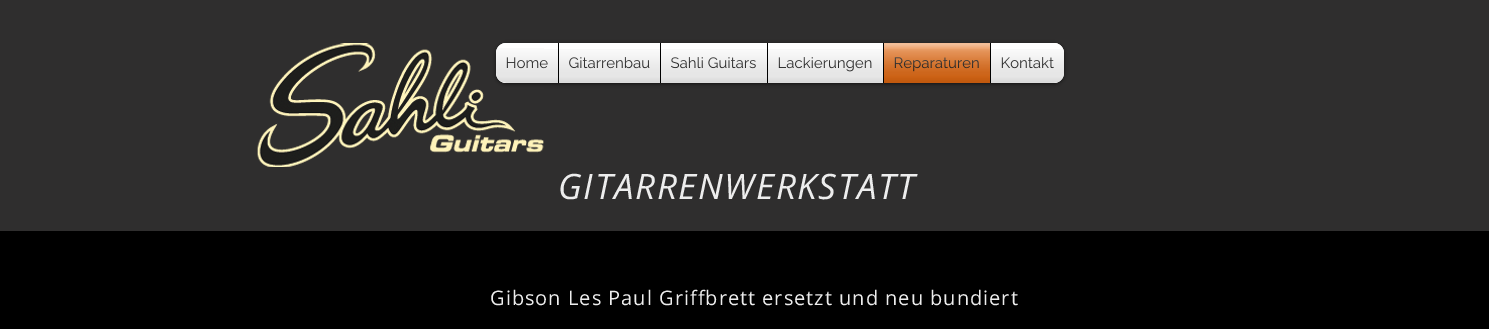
%!PS-Adobe-3.0
%%BoundingBox: 0 0 1489 329
%%LanguageLevel: 3
%%Pages: 1
%%EndComments
%%BeginProlog
/setalpha { dup .setfillconstantalpha .setstrokeconstantalpha } def
/rrect { 5 dict begin { /r /h /w /y /x } { exch def } forall
  x r add y moveto x w add y 2 copy h add r arct x w add y h add x 1 index r arct
  x y h add x y r arct x y 2 copy exch w add exch r arct closepath end } def
/softshadow { 12 dict begin { /a /b /q /h /w /y /x } { exch def } forall gsave /was 0 def
  9 -2 -9 { dup b mul 4 div /e exch def 1 sub .425 mul 2.718 exch exp 1 add a .99 .min exch div /now exch def
    1 1 now sub 1 was sub div sub setalpha /was now def
    w h .min e 2 mul add 0 gt { x e sub y e sub w e 2 mul add h e 2 mul add
      q e add b .6 mul add w h .min 2 div e add .min 0 .max rrect fill } if } for grestore end } def
/drawimage { 5 dict begin { /h /w /y /x /name } { exch def } forall
  gsave x y translate w h scale
  w h 8 [w 0 0 h 0 0] name (r) file false 3 colorimage grestore end } def
%%EndProlog
%%BeginSetup
<< /PageSize [1489 329] /PageUsesTransparency true >> setpagedevice
%%EndSetup
%%Page: 1 1
0 .pushpdf14devicefilter
0 329 translate 1 -1 scale
4 setmiterlimit
0 setgray
0 0 1489 329 rectfill
0.184 0.18 0.18 setrgbcolor
0 0 1489 231 rectfill
0 setgray
496 44 568 40 10 2 0.6 softshadow
(images/2.raw) 496 43 568 9 drawimage
(images/3.raw) 496 52 568 31 drawimage
1 setgray
newpath 506 43 moveto 558 43 lineto 558 83 lineto 506 83 lineto 500.5 83 496 78.5 496 73 curveto 496 53 lineto 496 47.5 500.5 43 506 43 curveto closepath fill
559 43 101 40 rectfill
0 setgray
558 43 1 40 rectfill
1 setgray
661 43 106 40 rectfill
0 setgray
660 43 1 40 rectfill
1 setgray
768 43 115 40 rectfill
0 setgray
767 43 1 40 rectfill
0.878 0.376 0.016 setrgbcolor
884 43 106 40 rectfill
0 setgray
883 43 1 40 rectfill
1 setgray
newpath 990 43 moveto 1054 43 lineto 1059.5 43 1064 47.5 1064 53 curveto 1064 73 lineto 1064 78.5 1059.5 83 1054 83 curveto 990 83 lineto closepath fill
0 setgray
990 43 1 40 rectfill
/Raleway-Regular [15 0 0 -15 0 0] selectfont
506 68 moveto (Home) show
(images/4.raw) 506 57 42 12 drawimage
(images/5.raw) 496 49 62 34 drawimage
(images/1.raw) 257 43 287 124 drawimage
569 68 moveto (Gitarrenbau) show
(images/6.raw) 569 57 81 12 drawimage
(images/7.raw) 559 49 101 34 drawimage
671 68 moveto (Sahli Guitars) show
(images/8.raw) 671 57 85 12 drawimage
(images/9.raw) 661 49 106 34 drawimage
778 68 moveto (Lackierungen) show
(images/10.raw) 778 57 94 15 drawimage
(images/11.raw) 768 49 115 34 drawimage
894 68 moveto (Reparaturen) show
(images/12.raw) 884 43 106 40 drawimage
(images/13.raw) 884 49 106 34 drawimage
1001 68 moveto (Kontakt) show
(images/14.raw) 1001 43 63 26 drawimage
(images/15.raw) 991 49 73 34 drawimage
/OpenSans-Italic [35 0 0 -35 0 0] selectfont
0.929 setgray
558 199 moveto 1.75 0 (GITARRENWERKSTATT) ashow
/OpenSans-Regular [20 0 0 -20 0 0] selectfont
490 305 moveto 1 0 (Gibson Les Paul Griffbrett ersetzt und neu bundiert) ashow
.poppdf14devicefilter showpage
%%EOF
